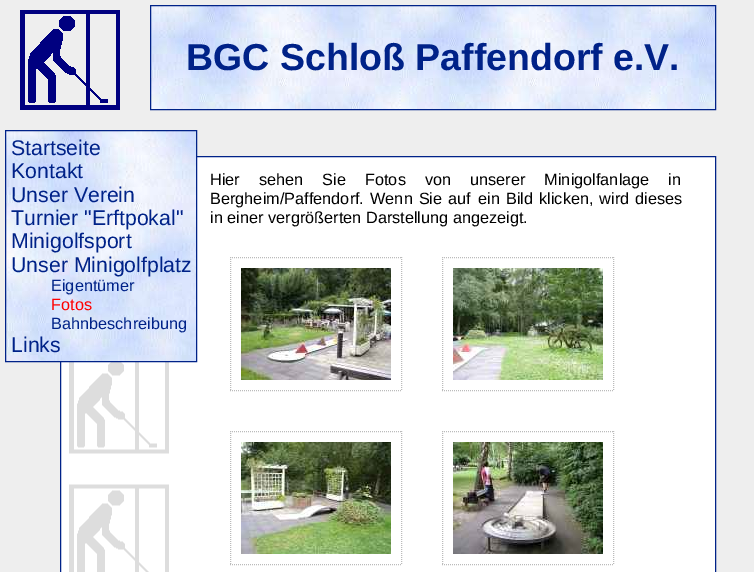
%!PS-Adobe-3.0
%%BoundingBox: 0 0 754 572
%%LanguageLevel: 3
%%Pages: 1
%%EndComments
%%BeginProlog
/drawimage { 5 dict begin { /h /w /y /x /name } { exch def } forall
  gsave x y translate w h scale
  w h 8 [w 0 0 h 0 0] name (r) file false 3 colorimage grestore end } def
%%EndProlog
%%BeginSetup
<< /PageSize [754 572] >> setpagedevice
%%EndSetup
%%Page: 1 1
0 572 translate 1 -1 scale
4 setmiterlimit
0.933 setgray
0 0 754 572 rectfill
(images/1.raw) 20 10 100 100 drawimage
(images/2.raw) 151 6 564 103 drawimage
0 0.133 0.533 setrgbcolor
150.5 5.5 565 104 rectstroke
1 setgray
61 157 654 415 rectfill
(images/4.raw) 69 362 100 210 drawimage
0 0.133 0.533 setrgbcolor
60.5 156.5 655 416 rectstroke
(images/3.raw) 6 131 190 230 drawimage
5.5 130.5 191 231 rectstroke
0.733 setgray
[1 1] 0 setdash
newpath 230 257.5 moveto 402 257.5 lineto stroke
newpath 401.5 257 moveto 401.5 391 lineto stroke
newpath 230 390.5 moveto 402 390.5 lineto stroke
newpath 230.5 257 moveto 230.5 391 lineto stroke
(images/5.raw) 241 268 150 112 drawimage
newpath 442 257.5 moveto 614 257.5 lineto stroke
newpath 613.5 257 moveto 613.5 391 lineto stroke
newpath 442 390.5 moveto 614 390.5 lineto stroke
newpath 442.5 257 moveto 442.5 391 lineto stroke
(images/6.raw) 453 268 150 112 drawimage
newpath 230 431.5 moveto 402 431.5 lineto stroke
newpath 401.5 431 moveto 401.5 565 lineto stroke
newpath 230 564.5 moveto 402 564.5 lineto stroke
newpath 230.5 431 moveto 230.5 565 lineto stroke
(images/7.raw) 241 442 150 112 drawimage
newpath 442 431.5 moveto 614 431.5 lineto stroke
newpath 613.5 431 moveto 613.5 565 lineto stroke
newpath 442 564.5 moveto 614 564.5 lineto stroke
newpath 442.5 431 moveto 442.5 565 lineto stroke
(images/8.raw) 453 442 150 112 drawimage
/LiberationSans-Bold [37.5 0 0 -37.5 0 0] selectfont
0 0.133 0.533 setrgbcolor
186 70 moveto (BGC Schloß Paffendorf e.V.) show
/LiberationSans-Regular [21.25 0 0 -21.25 0 0] selectfont
11 155 moveto (Startseite) show
11 178 moveto (Kontakt) show
11 202 moveto (Unser Verein) show
11 225 moveto (Turnier "Erftpokal") show
11 248 moveto (Minigolfsport) show
11 272 moveto (Unser Minigolfplatz) show
/LiberationSans-Regular [16.3 0 0 -16.3 0 0] selectfont
51 291 moveto (Eigentümer) show
1 0 0 setrgbcolor
51 310 moveto (Fotos) show
0 0.133 0.533 setrgbcolor
51 329 moveto (Bahnbeschreibung) show
/LiberationSans-Regular [21.25 0 0 -21.25 0 0] selectfont
11 352 moveto (Links) show
/LiberationSans-Regular [16.3 0 0 -16.3 0 0] selectfont
0 setgray
210 185 moveto 14.5 0 32 (Hier sehen Sie Fotos von unserer Minigolfanlage in) widthshow
210 204 moveto 1.5 0 32 (Bergheim/Paffendorf. Wenn Sie auf) widthshow
478 204 moveto 1.5 0 32 (ein Bild klicken, wird dieses) widthshow
210 223 moveto (in einer vergrößerten Darstellung angezeigt.) show
showpage
%%EOF
